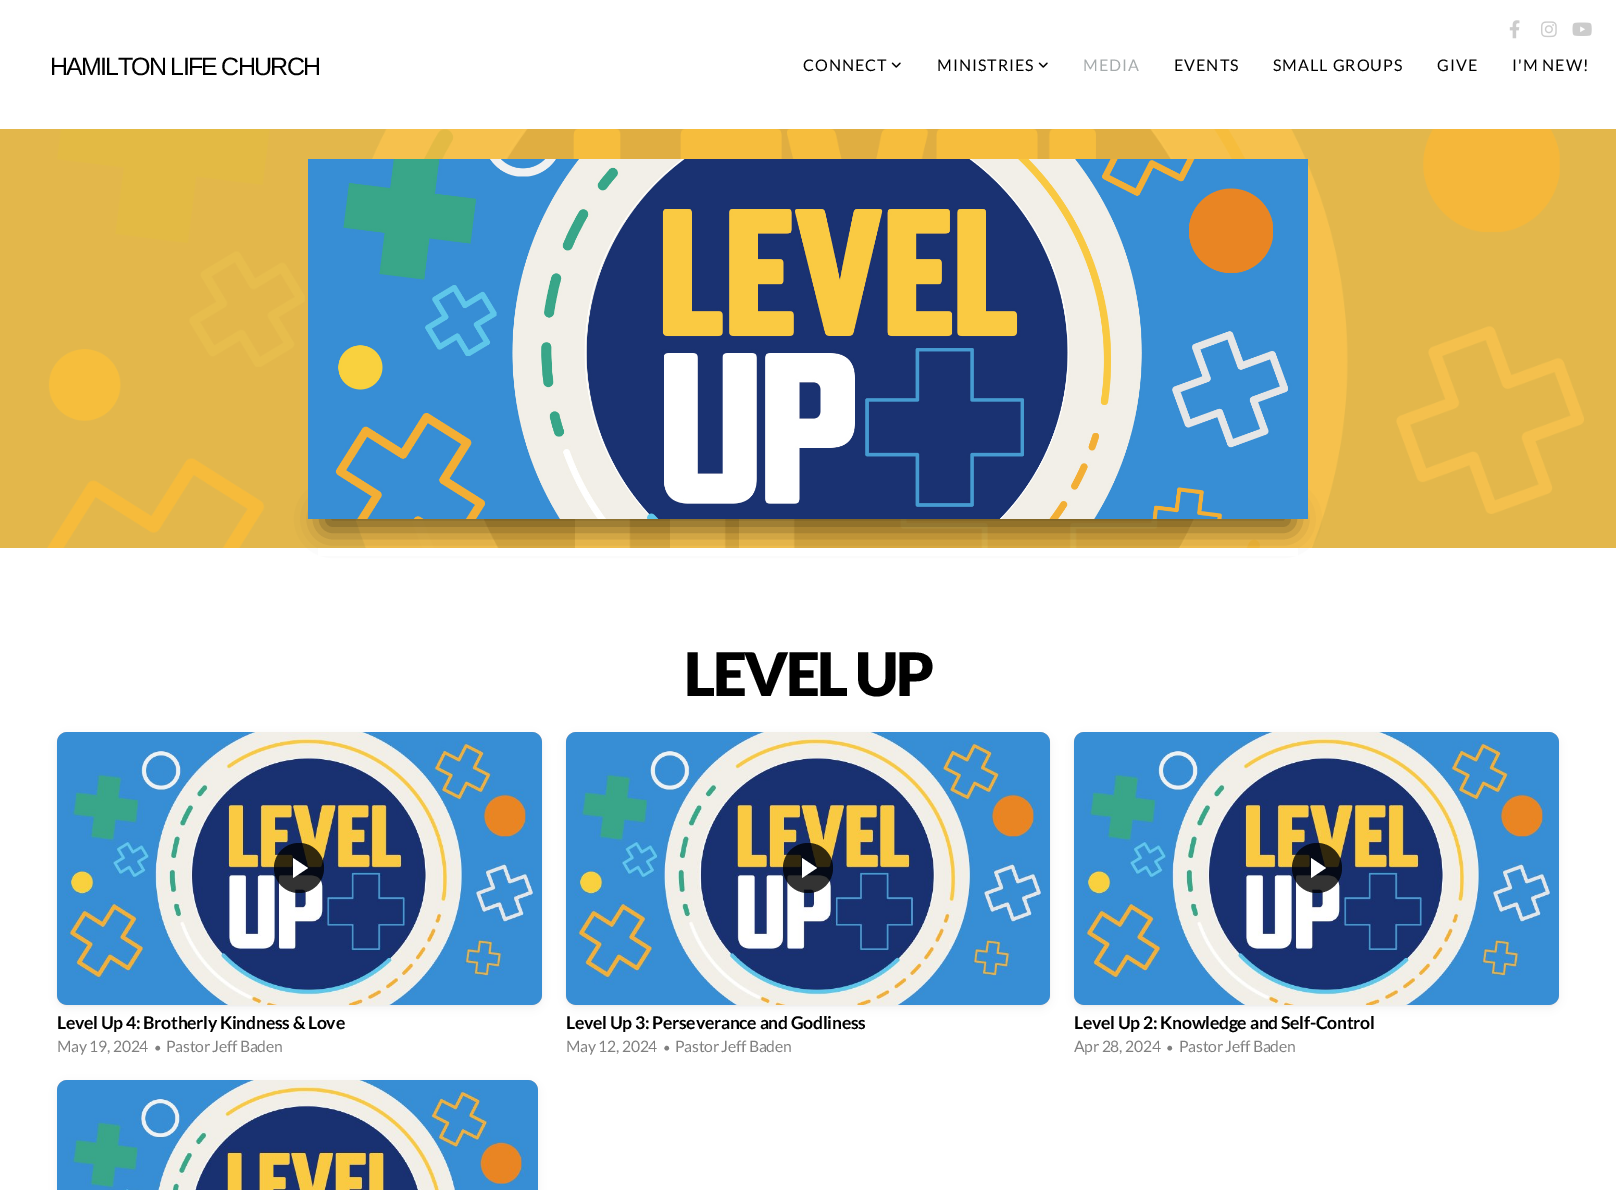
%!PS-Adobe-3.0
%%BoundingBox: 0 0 1616 1190
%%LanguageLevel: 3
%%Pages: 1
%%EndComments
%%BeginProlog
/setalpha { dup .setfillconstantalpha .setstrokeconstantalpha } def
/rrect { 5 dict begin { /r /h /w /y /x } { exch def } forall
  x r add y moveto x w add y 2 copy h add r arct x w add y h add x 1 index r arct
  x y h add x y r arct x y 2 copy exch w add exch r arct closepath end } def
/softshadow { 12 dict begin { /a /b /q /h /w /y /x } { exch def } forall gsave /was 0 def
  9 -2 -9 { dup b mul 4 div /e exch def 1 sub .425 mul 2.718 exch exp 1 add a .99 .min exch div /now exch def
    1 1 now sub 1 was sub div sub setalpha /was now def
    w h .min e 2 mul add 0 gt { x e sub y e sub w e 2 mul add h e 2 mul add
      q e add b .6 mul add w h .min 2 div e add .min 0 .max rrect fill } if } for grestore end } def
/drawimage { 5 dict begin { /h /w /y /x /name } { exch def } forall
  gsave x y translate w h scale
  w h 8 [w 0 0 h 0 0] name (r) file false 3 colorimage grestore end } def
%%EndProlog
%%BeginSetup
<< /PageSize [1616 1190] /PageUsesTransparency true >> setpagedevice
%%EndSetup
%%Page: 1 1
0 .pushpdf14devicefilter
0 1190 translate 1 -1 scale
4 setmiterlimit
1 setgray
0 0 1616 1190 rectfill
(images/1.raw) 1509 20 11 19 drawimage
(images/2.raw) 1541 21 16 17 drawimage
(images/3.raw) 1572 22 20 14 drawimage
(images/4.raw) 891 62 10 6 drawimage
(images/4.raw) 1038 62 10 6 drawimage
(images/5.raw) 0 129 1616 419 drawimage
0 setgray
322 508 972 22 11 12.5 0.5 softshadow
(images/6.raw) 308 159 1000 360 drawimage
1 setgray
318 548 980 8 rectfill
0 setgray
57 733 485 273 10 1 0.04 softshadow
57 735 485 273 10 5 0.06 softshadow
0.514 0.573 0.647 setrgbcolor
57 732 485 273 10 rrect fill
(images/7.raw) 57 732 485 273 drawimage
0.8 setalpha
0 setgray
newpath 299 868 25 0 360 arc closepath fill
1 setalpha
1 setgray
newpath 293 878 moveto 293 858 lineto 308 868 lineto closepath fill
0 setgray
566 733 484 273 10 1 0.04 softshadow
566 735 484 273 10 5 0.06 softshadow
0.514 0.573 0.647 setrgbcolor
566 732 484 273 10 rrect fill
(images/8.raw) 566 732 484 273 drawimage
0.8 setalpha
0 setgray
newpath 808 868 25 0 360 arc closepath fill
1 setalpha
1 setgray
newpath 802 878 moveto 802 858 lineto 817 868 lineto closepath fill
0 setgray
1074 733 485 273 10 1 0.04 softshadow
1074 735 485 273 10 5 0.06 softshadow
0.514 0.573 0.647 setrgbcolor
1074 732 485 273 10 rrect fill
(images/7.raw) 1074 732 485 273 drawimage
0.8 setalpha
0 setgray
newpath 1317 868 25 0 360 arc closepath fill
1 setalpha
1 setgray
newpath 1311 878 moveto 1311 858 lineto 1326 868 lineto closepath fill
0 setgray
57 1083 481 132 10 5 0.06 softshadow
0.514 0.573 0.647 setrgbcolor
57 1080 481 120 10 rrect fill
(images/9.raw) 57 1080 481 110 drawimage
/LiberationSans-Regular [25 0 0 -25 0 0] selectfont
0 setgray
50 75 moveto -1.75 0 (HAMILTON LIFE CHURCH) ashow
/Lato-Regular [16 0 0 -16 0 0] selectfont
803 71 moveto 1 0 (CONNECT) ashow
937 71 moveto 1 0 (MINISTRIES) ashow
0.651 0.671 0.675 setrgbcolor
1083 71 moveto 1 0 (MEDIA) ashow
0 setgray
1174 71 moveto 1 0 (EVENTS) ashow
1273 71 moveto 1 0 (SMALL GROUPS) ashow
1437 71 moveto 1 0 (GIVE) ashow
1512 71 moveto 1 0 (I'M NEW!) ashow
/Lato-Black [60 0 0 -60 0 0] selectfont
684 696 moveto -2.5 0 (LEVEL UP) ashow
/Lato-Bold [17.6 0 0 -17.6 0 0] selectfont
57 1029 moveto -0.3 0 (Level Up 4: Brotherly Kindness & Love) ashow
/Lato-Regular [15.75 0 0 -15.75 0 0] selectfont
0.502 setgray
57 1052 moveto -0.3 0 (May 19, 2024) ashow
/Lato-Regular [13 0 0 -13 0 0] selectfont
154 1052 moveto -0.3 0 (•) ashow
/Lato-Regular [15.75 0 0 -15.75 0 0] selectfont
166 1052 moveto -0.3 0 (Pastor Jeff Baden) ashow
/Lato-Bold [17.6 0 0 -17.6 0 0] selectfont
0 setgray
566 1029 moveto -0.3 0 (Level Up 3: Perseverance and Godliness) ashow
/Lato-Regular [15.75 0 0 -15.75 0 0] selectfont
0.502 setgray
566 1052 moveto -0.3 0 (May 12, 2024) ashow
/Lato-Regular [13 0 0 -13 0 0] selectfont
663 1052 moveto -0.3 0 (•) ashow
/Lato-Regular [15.75 0 0 -15.75 0 0] selectfont
675 1052 moveto -0.3 0 (Pastor Jeff Baden) ashow
/Lato-Bold [17.6 0 0 -17.6 0 0] selectfont
0 setgray
1074 1029 moveto -0.3 0 (Level Up 2: Knowledge and Self-Control) ashow
/Lato-Regular [15.75 0 0 -15.75 0 0] selectfont
0.502 setgray
1074 1052 moveto -0.3 0 (Apr 28, 2024) ashow
/Lato-Regular [13 0 0 -13 0 0] selectfont
1166 1052 moveto -0.3 0 (•) ashow
/Lato-Regular [15.75 0 0 -15.75 0 0] selectfont
1179 1052 moveto -0.3 0 (Pastor Jeff Baden) ashow
.poppdf14devicefilter showpage
%%EOF
